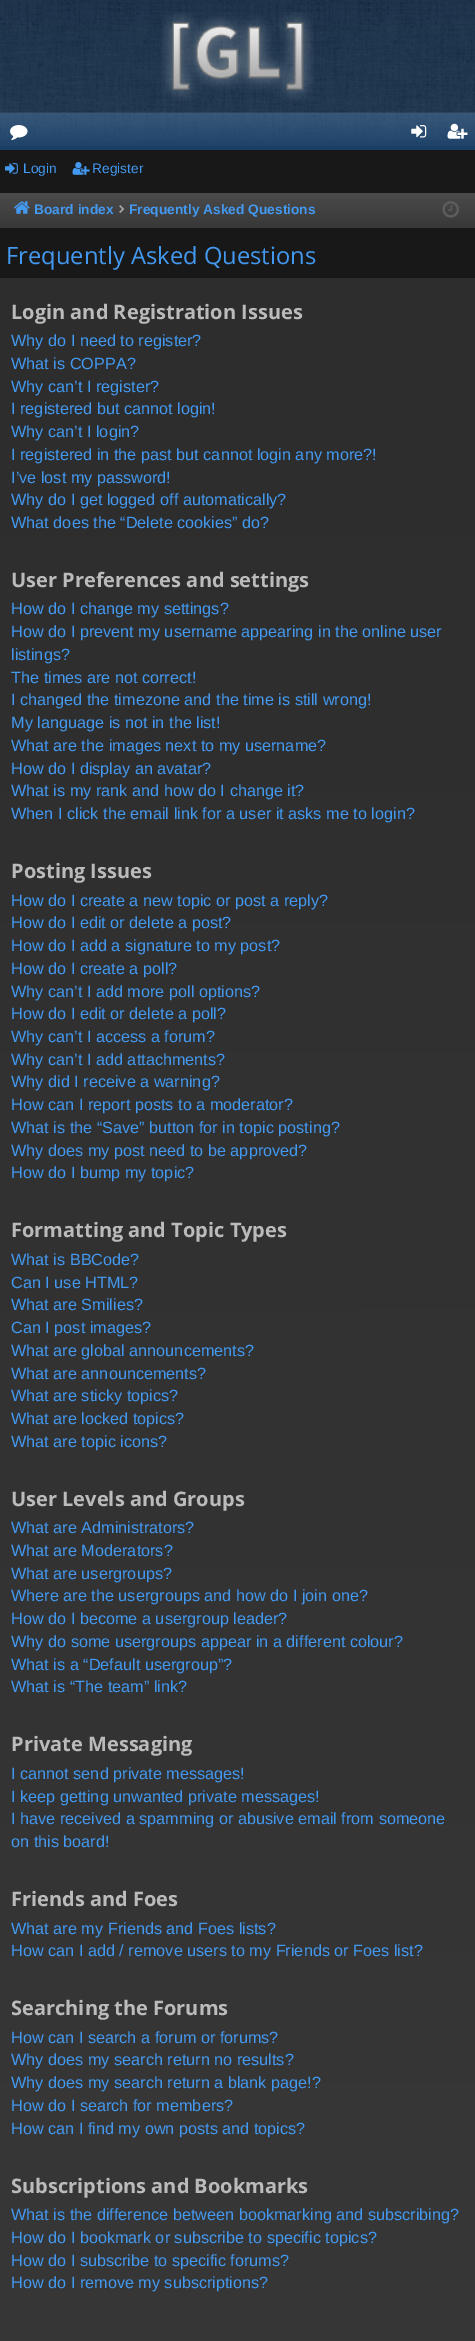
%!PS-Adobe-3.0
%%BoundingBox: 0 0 475 2341
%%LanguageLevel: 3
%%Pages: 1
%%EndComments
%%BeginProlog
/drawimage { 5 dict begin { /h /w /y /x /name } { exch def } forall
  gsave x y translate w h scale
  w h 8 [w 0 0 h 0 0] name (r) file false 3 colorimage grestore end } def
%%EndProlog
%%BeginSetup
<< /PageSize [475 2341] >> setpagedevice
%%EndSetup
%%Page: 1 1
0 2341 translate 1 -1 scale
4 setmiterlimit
0.102 0.227 0.361 setrgbcolor
0 0 475 2341 rectfill
(images/1.raw) 0 0 475 113 drawimage
(images/2.raw) 161 12 153 89 drawimage
0.094 setgray
0 150 475 128 rectfill
0.102 0.247 0.4 setrgbcolor
0 113 475 37 rectfill
(images/3.raw) 0 112 475 34 drawimage
(images/4.raw) 10 125 18 15 drawimage
(images/5.raw) 411 125 16 13 drawimage
(images/6.raw) 447 123 21 16 drawimage
(images/7.raw) 5 163 13 11 drawimage
(images/8.raw) 72 162 18 13 drawimage
gsave newpath 0 193 moveto 475 193 lineto 475 228 lineto 0 228 lineto closepath clip newpath
<< /ShadingType 2 /ColorSpace /DeviceRGB /Coords [238 192 238 228] /Extend [true true] /Function << /FunctionType 2 /Domain [0 1] /C0 [0.298 0.298 0.298] /C1 [0.22 0.22 0.22] /N 1 >> >> shfill grestore
(images/9.raw) 14 201 16 13 drawimage
(images/10.raw) 119 205 6 8 drawimage
(images/11.raw) 442 201 17 17 drawimage
gsave newpath 0 278 moveto 475 278 lineto 475 2341 lineto 0 2341 lineto closepath clip newpath
<< /ShadingType 2 /ColorSpace /DeviceRGB /Coords [237 278 238 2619] /Extend [true true] /Function << /FunctionType 2 /Domain [0 1] /C0 [0.176 0.176 0.176] /C1 [0.22 0.22 0.22] /N 1 >> >> shfill grestore
/LiberationSans-Regular [13.75 0 0 -13.75 0 0] selectfont
0.263 0.596 0.937 setrgbcolor
23 173 moveto (Login) show
92 173 moveto (Register) show
/LiberationSans-Bold [13.75 0 0 -13.75 0 0] selectfont
34 214 moveto (Board index) show
129 214 moveto (Frequently Asked Questions) show
/OpenSans-Regular [23.75 0 0 -23.75 0 0] selectfont
6 264 moveto (Frequently Asked Questions) show
/OpenSans-Bold [20 0 0 -20 0 0] selectfont
0.733 setgray
11 319 moveto (Login and Registration Issues) show
/LiberationSans-Regular [16.25 0 0 -16.25 0 0] selectfont
0.263 0.596 0.937 setrgbcolor
11 346 moveto (Why do I need to register?) show
11 369 moveto (What is COPPA?) show
11 392 moveto (Why can’t I register?) show
11 414 moveto (I registered but cannot login!) show
11 437 moveto (Why can’t I login?) show
11 460 moveto (I registered in the past but cannot login any more?!) show
11 483 moveto (I’ve lost my password!) show
11 505 moveto (Why do I get logged off automatically?) show
11 528 moveto (What does the “Delete cookies” do?) show
/OpenSans-Bold [20 0 0 -20 0 0] selectfont
0.733 setgray
11 587 moveto (User Preferences and settings) show
/LiberationSans-Regular [16.25 0 0 -16.25 0 0] selectfont
0.263 0.596 0.937 setrgbcolor
11 614 moveto (How do I change my settings?) show
11 637 moveto (How do I prevent my username appearing in the online user) show
11 660 moveto (listings?) show
11 683 moveto (The times are not correct!) show
11 705 moveto (I changed the timezone and the time is still wrong!) show
11 728 moveto (My language is not in the list!) show
11 751 moveto (What are the images next to my username?) show
11 774 moveto (How do I display an avatar?) show
11 796 moveto (What is my rank and how do I change it?) show
11 819 moveto (When I click the email link for a user it asks me to login?) show
/OpenSans-Bold [20 0 0 -20 0 0] selectfont
0.733 setgray
11 878 moveto (Posting Issues) show
/LiberationSans-Regular [16.25 0 0 -16.25 0 0] selectfont
0.263 0.596 0.937 setrgbcolor
11 906 moveto (How do I create a new topic or post a reply?) show
11 928 moveto (How do I edit or delete a post?) show
11 951 moveto (How do I add a signature to my post?) show
11 974 moveto (How do I create a poll?) show
11 997 moveto (Why can’t I add more poll options?) show
11 1019 moveto (How do I edit or delete a poll?) show
11 1042 moveto (Why can’t I access a forum?) show
11 1065 moveto (Why can’t I add attachments?) show
11 1087 moveto (Why did I receive a warning?) show
11 1110 moveto (How can I report posts to a moderator?) show
11 1133 moveto (What is the “Save” button for in topic posting?) show
11 1156 moveto (Why does my post need to be approved?) show
11 1178 moveto (How do I bump my topic?) show
/OpenSans-Bold [20 0 0 -20 0 0] selectfont
0.733 setgray
11 1237 moveto (Formatting and Topic Types) show
/LiberationSans-Regular [16.25 0 0 -16.25 0 0] selectfont
0.263 0.596 0.937 setrgbcolor
11 1265 moveto (What is BBCode?) show
11 1288 moveto (Can I use HTML?) show
11 1310 moveto (What are Smilies?) show
11 1333 moveto (Can I post images?) show
11 1356 moveto (What are global announcements?) show
11 1379 moveto (What are announcements?) show
11 1401 moveto (What are sticky topics?) show
11 1424 moveto (What are locked topics?) show
11 1447 moveto (What are topic icons?) show
/OpenSans-Bold [20 0 0 -20 0 0] selectfont
0.733 setgray
11 1506 moveto (User Levels and Groups) show
/LiberationSans-Regular [16.25 0 0 -16.25 0 0] selectfont
0.263 0.596 0.937 setrgbcolor
11 1533 moveto (What are Administrators?) show
11 1556 moveto (What are Moderators?) show
11 1579 moveto (What are usergroups?) show
11 1601 moveto (Where are the usergroups and how do I join one?) show
11 1624 moveto (How do I become a usergroup leader?) show
11 1647 moveto (Why do some usergroups appear in a different colour?) show
11 1670 moveto (What is a “Default usergroup”?) show
11 1692 moveto (What is “The team” link?) show
/OpenSans-Bold [20 0 0 -20 0 0] selectfont
0.733 setgray
11 1751 moveto (Private Messaging) show
/LiberationSans-Regular [16.25 0 0 -16.25 0 0] selectfont
0.263 0.596 0.937 setrgbcolor
11 1779 moveto (I cannot send private messages!) show
11 1802 moveto (I keep getting unwanted private messages!) show
11 1824 moveto (I have received a spamming or abusive email from someone) show
11 1847 moveto (on this board!) show
/OpenSans-Bold [20 0 0 -20 0 0] selectfont
0.733 setgray
11 1906 moveto (Friends and Foes) show
/LiberationSans-Regular [16.25 0 0 -16.25 0 0] selectfont
0.263 0.596 0.937 setrgbcolor
11 1934 moveto (What are my Friends and Foes lists?) show
11 1956 moveto (How can I add / remove users to my Friends or Foes list?) show
/OpenSans-Bold [20 0 0 -20 0 0] selectfont
0.733 setgray
11 2015 moveto (Searching the Forums) show
/LiberationSans-Regular [16.25 0 0 -16.25 0 0] selectfont
0.263 0.596 0.937 setrgbcolor
11 2043 moveto (How can I search a forum or forums?) show
11 2065 moveto (Why does my search return no results?) show
11 2088 moveto (Why does my search return a blank page!?) show
11 2111 moveto (How do I search for members?) show
11 2134 moveto (How can I find my own posts and topics?) show
/OpenSans-Bold [20 0 0 -20 0 0] selectfont
0.733 setgray
11 2193 moveto (Subscriptions and Bookmarks) show
/LiberationSans-Regular [16.25 0 0 -16.25 0 0] selectfont
0.263 0.596 0.937 setrgbcolor
11 2220 moveto (What is the difference between bookmarking and subscribing?) show
11 2243 moveto (How do I bookmark or subscribe to specific topics?) show
11 2266 moveto (How do I subscribe to specific forums?) show
11 2288 moveto (How do I remove my subscriptions?) show
showpage
%%EOF
